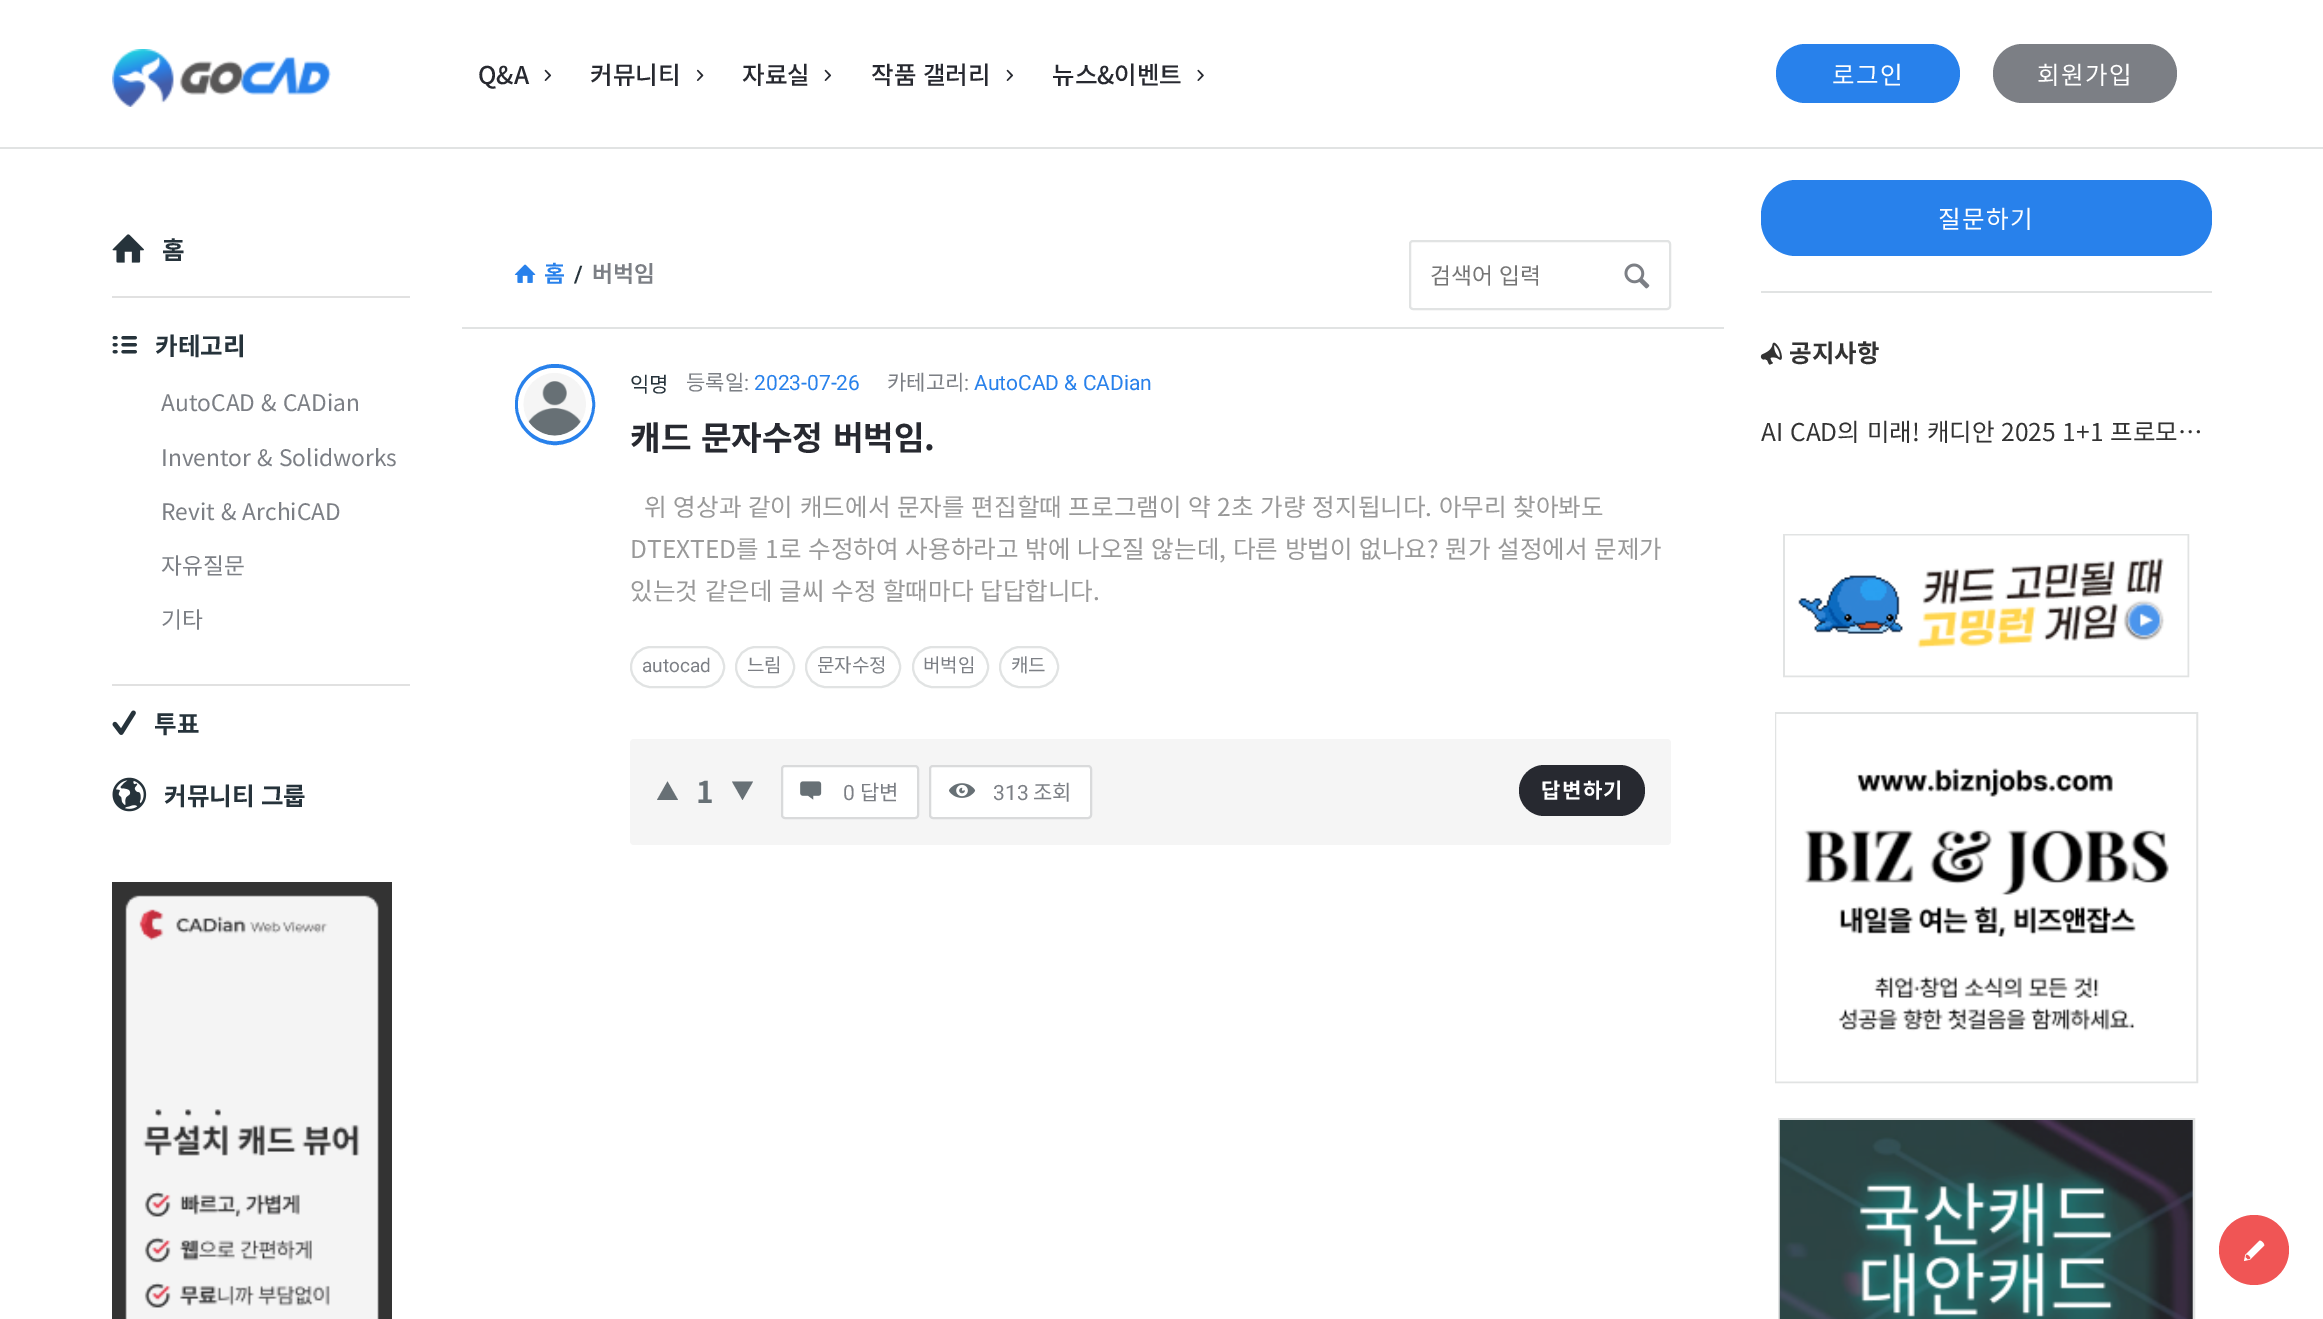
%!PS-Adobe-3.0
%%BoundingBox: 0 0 2323 1319
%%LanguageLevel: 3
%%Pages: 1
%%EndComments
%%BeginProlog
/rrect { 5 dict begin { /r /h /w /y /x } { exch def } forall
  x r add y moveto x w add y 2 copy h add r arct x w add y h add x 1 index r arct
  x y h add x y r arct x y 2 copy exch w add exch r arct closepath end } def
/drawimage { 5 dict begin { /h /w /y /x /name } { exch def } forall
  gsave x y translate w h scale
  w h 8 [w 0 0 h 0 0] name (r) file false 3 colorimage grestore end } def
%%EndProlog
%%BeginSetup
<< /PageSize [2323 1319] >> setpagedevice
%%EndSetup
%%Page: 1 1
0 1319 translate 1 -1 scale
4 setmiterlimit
1 setgray
0 0 2323 1319 rectfill
0.882 0.89 0.89 setrgbcolor
0 147 2323 2 rectfill
(images/1.raw) 112 49 219 58 drawimage
(images/2.raw) 544 69 8 12 drawimage
(images/3.raw) 696 69 8 12 drawimage
(images/2.raw) 824 69 8 12 drawimage
(images/2.raw) 1006 69 8 12 drawimage
(images/4.raw) 1197 69 7 12 drawimage
0.157 0.506 0.922 setrgbcolor
1776 44 184 59 29.5 rrect fill
0.486 0.498 0.522 setrgbcolor
1993 44 184 59 29.5 rrect fill
(images/5.raw) 112 234 32 29 drawimage
0.882 setgray
112 296 298 2 rectfill
(images/6.raw) 112 336 25 18 drawimage
112 684 298 2 rectfill
(images/7.raw) 112 710 24 25 drawimage
(images/8.raw) 112 777 35 35 drawimage
(images/9.raw) 112 882 280 437 drawimage
0.882 0.89 0.89 setrgbcolor
462 327 1262 2 rectfill
(images/10.raw) 514 264 22 19 drawimage
2 setlinewidth
1410 241 260 68 3 rrect stroke
(images/11.raw) 1624 263 26 26 drawimage
0.157 0.506 0.922 setrgbcolor
4 setlinewidth
517 366 76 77 38 rrect stroke
1 setgray
5 setlinewidth
520.5 370.5 69 68 34 rrect stroke
(images/12.raw) 523 373 63 63 drawimage
0.882 0.89 0.89 setrgbcolor
2 setlinewidth
631 647 93 40 20 rrect stroke
736 647 58 40 20 rrect stroke
806 647 94 40 20 rrect stroke
913 647 75 40 20 rrect stroke
1000 647 58 40 20 rrect stroke
0.961 setgray
630 739 1041 106 4 rrect fill
0.404 0.439 0.459 setrgbcolor
newpath 657 800 moveto 667.5 781.5 lineto 678 800 lineto closepath fill
newpath 753 781.5 moveto 742.5 800 lineto 732 781.5 lineto closepath fill
1 setgray
782 766 136 52 3 rrect gsave fill grestore
0.851 0.855 0.859 setrgbcolor
stroke
(images/13.raw) 800 781 22 19 drawimage
1 setgray
930 766 161 52 3 rrect gsave fill grestore
0.851 0.855 0.859 setrgbcolor
stroke
(images/14.raw) 949 783 27 15 drawimage
0.153 0.161 0.188 setrgbcolor
1519 765 126 51 25.5 rrect fill
0.882 0.89 0.89 setrgbcolor
1761 291 451 2 rectfill
0.157 0.506 0.922 setrgbcolor
1761 180 451 76 35 rrect fill
(images/15.raw) 1760 342 22 23 drawimage
0.882 0.89 0.89 setrgbcolor
1784 535 404 141 rectstroke
(images/16.raw) 1785 535 403 141 drawimage
1776 713 421 369 rectstroke
(images/17.raw) 1776 714 421 368 drawimage
1779 1119 415 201 rectstroke
(images/18.raw) 1779 1120 414 199 drawimage
0.941 0.333 0.333 setrgbcolor
newpath 2254 1250 35 0 360 arc closepath fill
(images/19.raw) 2244 1240 21 21 drawimage
/NotoSansKR-Medium [24.5 0 0 -24.5 0 0] selectfont
0.153 0.161 0.188 setrgbcolor
478 84 moveto (Q&A) show
590 84 moveto (커뮤니티) show
742 84 moveto (자료실) show
871 84 moveto 1 0 32 (작품 갤러리) widthshow
1052 84 moveto (뉴스&이벤트) show
/NotoSansKR-Regular [24.5 0 0 -24.5 0 0] selectfont
1 setgray
1832 84 moveto 1.5 0 (로그인) ashow
2037 84 moveto 1.5 0 (회원가입) ashow
/NotoSansKR-Bold [24.5 0 0 -24.5 0 0] selectfont
0.149 0.2 0.231 setrgbcolor
162 259 moveto (홈) show
155 355 moveto (카테고리) show
/NotoSansKR-Regular [22.75 0 0 -22.75 0 0] selectfont
0.486 0.498 0.522 setrgbcolor
161 411 moveto 1 0 32 (AutoCAD & CADian) widthshow
161 466 moveto 1 0 32 (Inventor & Solidworks) widthshow
161 520 moveto 1 0 32 (Revit & ArchiCAD) widthshow
161 574 moveto (자유질문) show
161 628 moveto (기타) show
/NotoSansKR-Bold [24.5 0 0 -24.5 0 0] selectfont
0.149 0.2 0.231 setrgbcolor
154 733 moveto (투표) show
164 805 moveto 1 0 32 (커뮤니티 그룹) widthshow
/NotoSansKR-SemiBold [22.75 0 0 -22.75 0 0] selectfont
0.157 0.506 0.922 setrgbcolor
544 282 moveto (홈) show
/Roboto-SemiBold [22.75 0 0 -22.75 0 0] selectfont
0.149 0.2 0.231 setrgbcolor
574 282 moveto (/) show
/NotoSansKR-SemiBold [22.75 0 0 -22.75 0 0] selectfont
0.486 0.498 0.522 setrgbcolor
592 282 moveto (버벅임) show
/NotoSansKR-Regular [22.75 0 0 -22.75 0 0] selectfont
0.459 setgray
1430 284 moveto 1 0 32 (검색어 입력) widthshow
/NotoSansKR-Regular [21 0 0 -21 0 0] selectfont
0.149 0.2 0.231 setrgbcolor
630 392 moveto (익명) show
0.486 0.498 0.522 setrgbcolor
686 390 moveto (등록일) show
/Roboto-Regular [21 0 0 -21 0 0] selectfont
744 390 moveto (:) show
0.157 0.506 0.922 setrgbcolor
754 390 moveto (2023-07-26) show
/NotoSansKR-Regular [21 0 0 -21 0 0] selectfont
0.486 0.498 0.522 setrgbcolor
887 390 moveto (카테고리) show
/Roboto-Regular [21 0 0 -21 0 0] selectfont
964 390 moveto (:) show
0.157 0.506 0.922 setrgbcolor
974 390 moveto (AutoCAD & CADian) show
/NotoSansKR-Bold [33.25 0 0 -33.25 0 0] selectfont
0.153 0.161 0.188 setrgbcolor
630 450 moveto 2 0 32 (캐드 문자수정 버벅임.) widthshow
/NotoSansKR-Regular [24.5 0 0 -24.5 0 0] selectfont
0.6 setgray
644 516 moveto 1.4 0 32 (위 영상과 같이 캐드에서 문자를 편집할때 프로그램이 약 2초 가량 정지됩니다. 아무리 찾아봐도) widthshow
630 558 moveto 1.4 0 32 (DTEXTED를 1로 수정하여 사용하라고 밖에 나오질 않는데, 다른 방법이 없나요? 뭔가 설정에서 문제가) widthshow
630 600 moveto 1.4 0 32 (있는것 같은데 글씨 수정 할때마다 답답합니다.) widthshow
/Roboto-Regular [19 0 0 -19 0 0] selectfont
0.486 0.498 0.522 setrgbcolor
642 672 moveto (autocad) show
/NotoSansKR-Regular [19 0 0 -19 0 0] selectfont
747 672 moveto (느림) show
817 672 moveto (문자수정) show
923 672 moveto (버벅임) show
1011 672 moveto (캐드) show
/NotoSansKR-Bold [30 0 0 -30 0 0] selectfont
0.404 0.439 0.459 setrgbcolor
696 803 moveto (1) show
/Roboto-Regular [21 0 0 -21 0 0] selectfont
0.486 0.498 0.522 setrgbcolor
843 800 moveto (0) show
/NotoSansKR-Regular [21 0 0 -21 0 0] selectfont
860 800 moveto (답변) show
/Roboto-Regular [21 0 0 -21 0 0] selectfont
993 800 moveto (313) show
/NotoSansKR-Regular [21 0 0 -21 0 0] selectfont
1033 800 moveto (조회) show
/NotoSansKR-Bold [21 0 0 -21 0 0] selectfont
1 setgray
1541 798 moveto 1.5 0 (답변하기) ashow
/NotoSansKR-Regular [24.5 0 0 -24.5 0 0] selectfont
1938 228 moveto 1.5 0 (질문하기) ashow
/NotoSansKR-Bold [24.5 0 0 -24.5 0 0] selectfont
0.2 setgray
1789 362 moveto (공지사항) show
/NotoSansKR-Regular [24.5 0 0 -24.5 0 0] selectfont
1761 441 moveto 1.4 0 32 (AI CAD의 미래! 캐디안 2025 1+1 프로모…) widthshow
showpage
%%EOF
